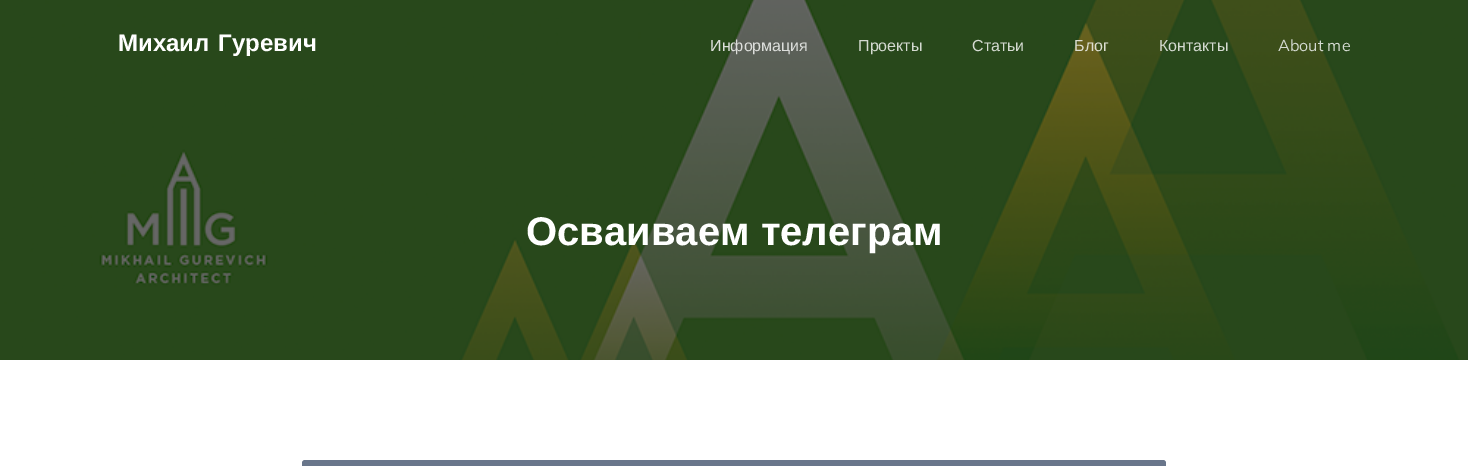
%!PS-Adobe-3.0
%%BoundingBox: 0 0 1468 466
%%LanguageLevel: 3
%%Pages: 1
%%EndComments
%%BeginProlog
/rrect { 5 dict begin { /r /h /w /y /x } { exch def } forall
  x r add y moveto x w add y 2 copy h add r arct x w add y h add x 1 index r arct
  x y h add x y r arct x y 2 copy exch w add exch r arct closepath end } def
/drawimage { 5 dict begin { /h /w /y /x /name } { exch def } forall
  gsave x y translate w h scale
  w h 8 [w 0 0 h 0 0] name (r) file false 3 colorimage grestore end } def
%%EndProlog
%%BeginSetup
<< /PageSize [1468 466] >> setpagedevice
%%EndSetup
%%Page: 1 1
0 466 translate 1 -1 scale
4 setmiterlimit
1 setgray
0 0 1468 466 rectfill
(images/1.raw) 0 0 1468 360 drawimage
0.412 0.463 0.545 setrgbcolor
302 460 864 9 3 rrect fill
/LiberationSans-Bold [24 0 0 -24 0 0] selectfont
1 setgray
118 51 moveto 2 0 32 (Михаил Гуревич) widthshow
/LiberationSans-Regular [16 0 0 -16 0 0] selectfont
0.863 0.871 0.859 setrgbcolor
710 51 moveto (Информация) show
0.831 0.855 0.82 setrgbcolor
858 51 moveto (Проекты) show
972 51 moveto (Статьи) show
0.867 0.871 0.824 setrgbcolor
1074 51 moveto (Блог) show
0.831 0.855 0.82 setrgbcolor
1159 51 moveto (Контакты) show
/Mulish-Regular [16 0 0 -16 0 0] selectfont
1278 51 moveto (About me) show
/LiberationSans-Bold [40 0 0 -40 0 0] selectfont
1 setgray
526 245 moveto (Осваиваем телеграм) show
showpage
%%EOF
